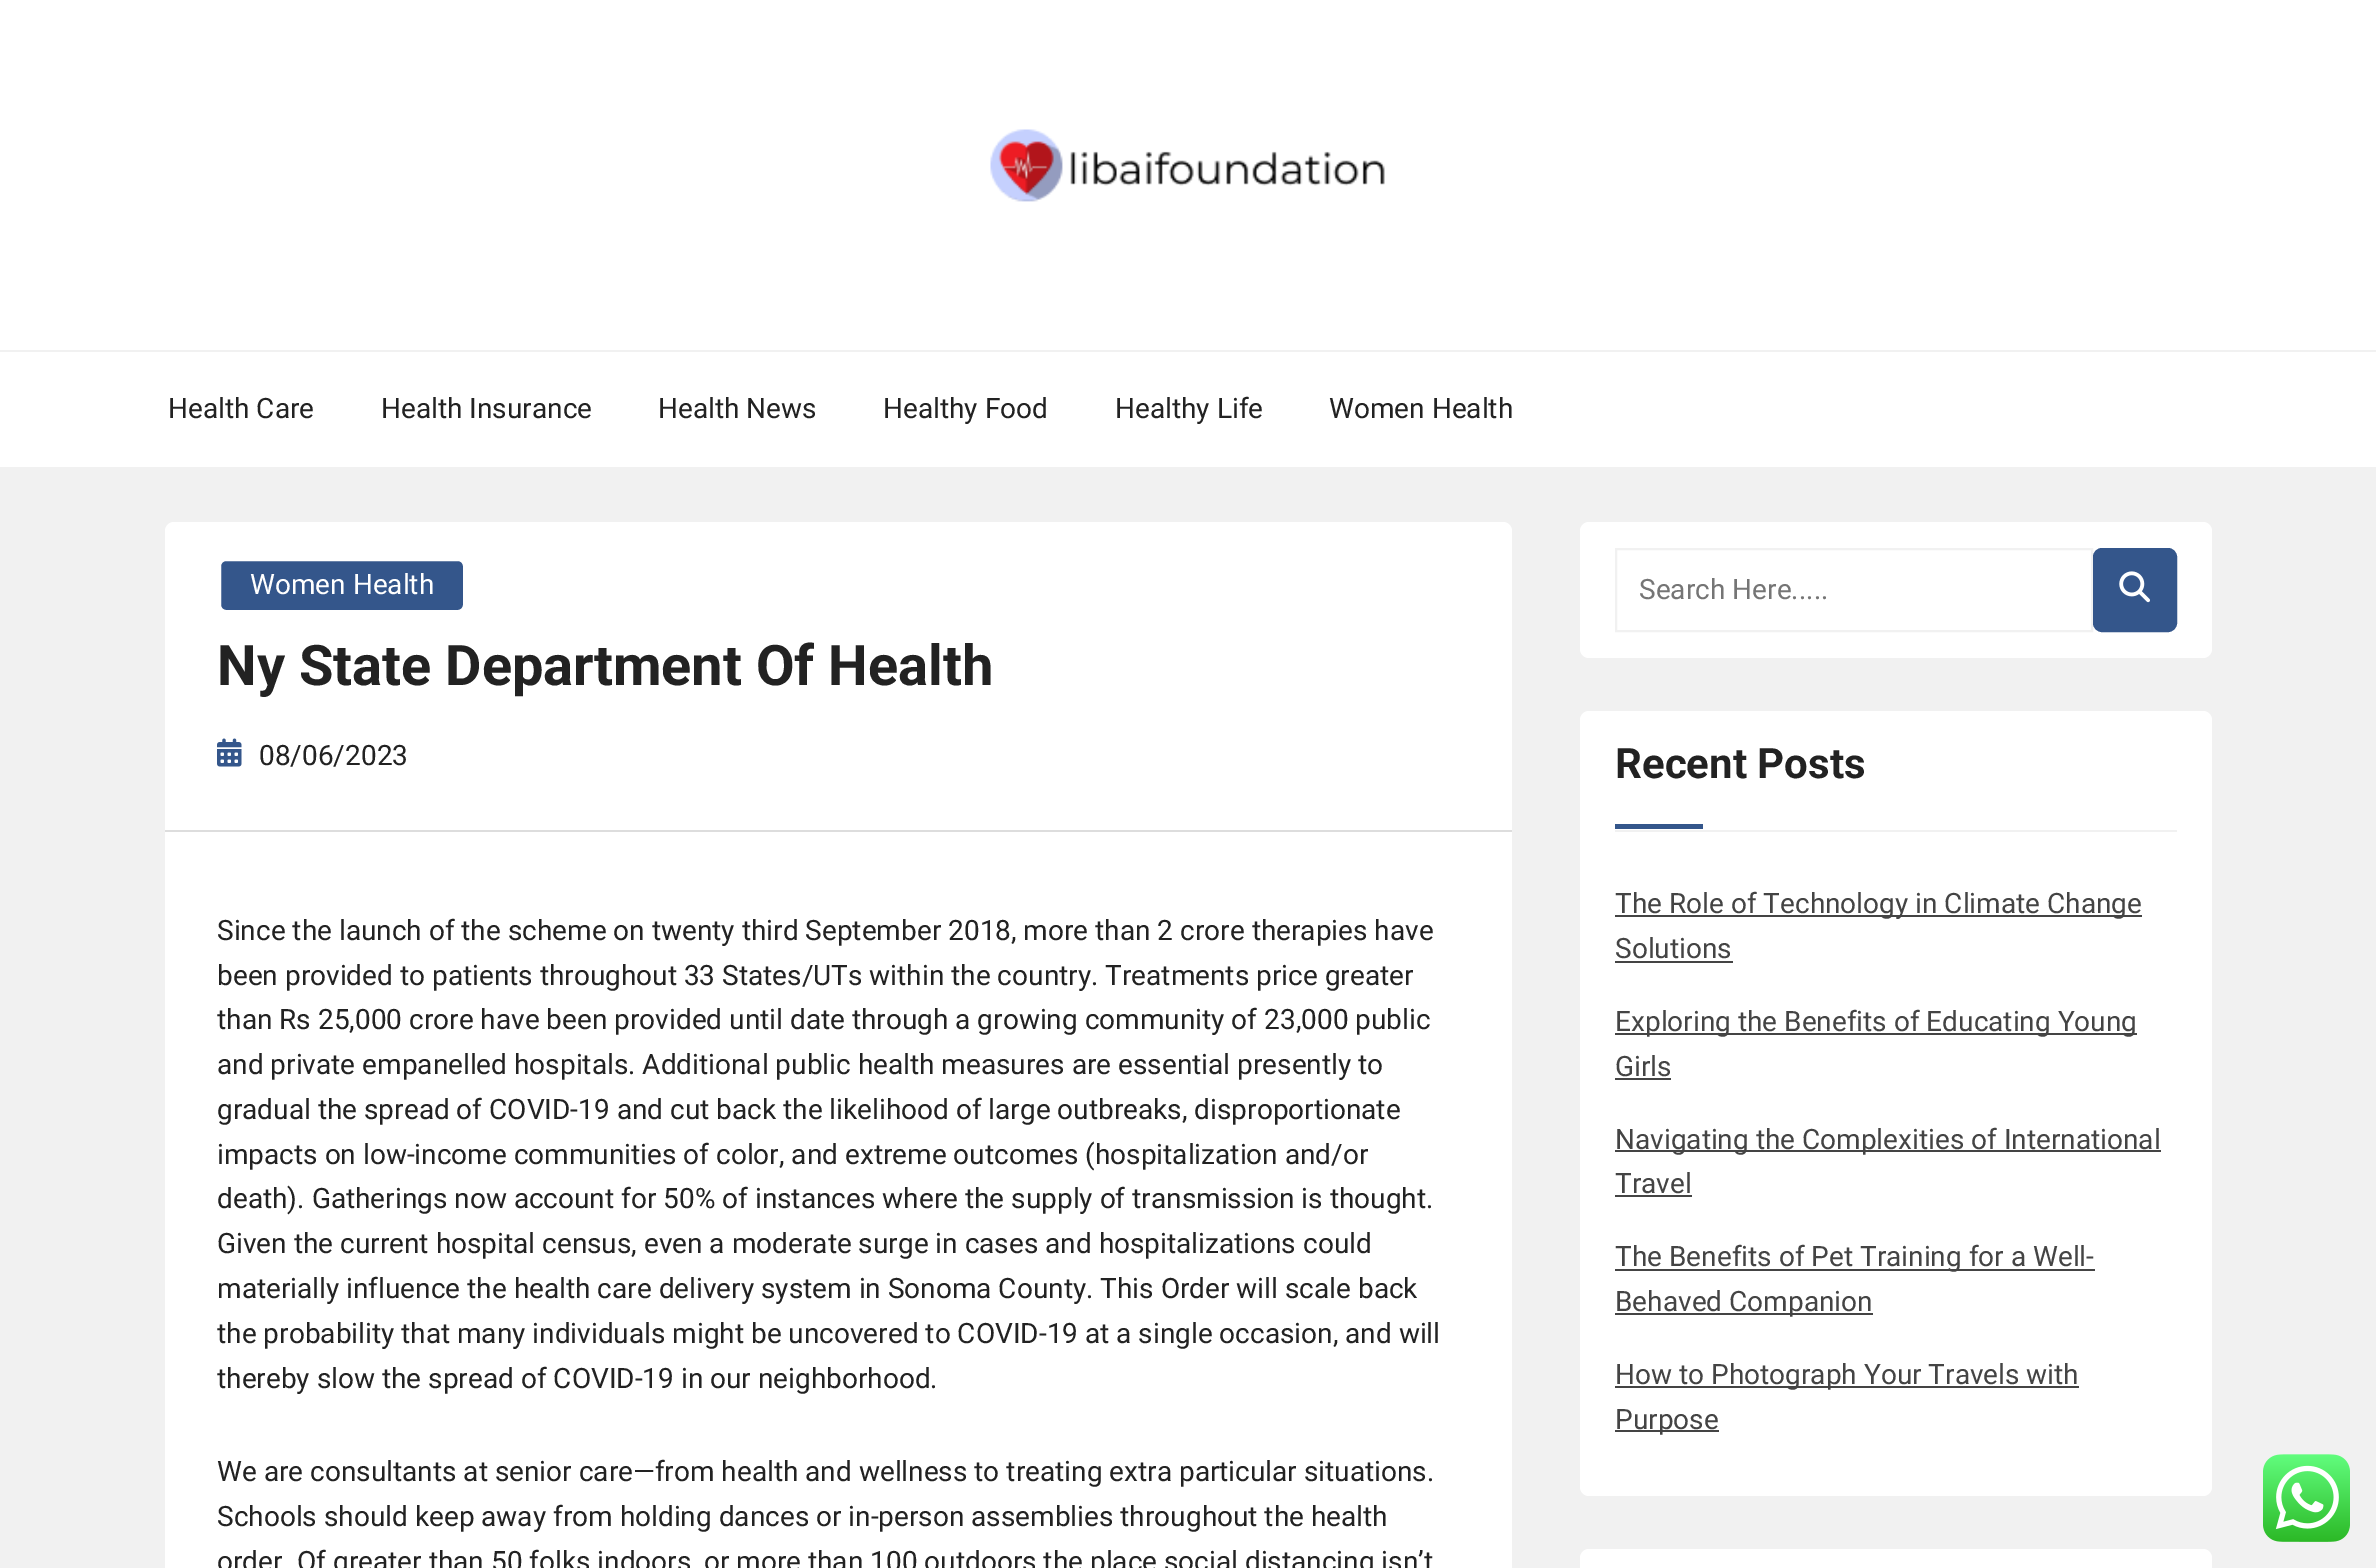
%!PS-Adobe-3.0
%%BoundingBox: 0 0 2376 1568
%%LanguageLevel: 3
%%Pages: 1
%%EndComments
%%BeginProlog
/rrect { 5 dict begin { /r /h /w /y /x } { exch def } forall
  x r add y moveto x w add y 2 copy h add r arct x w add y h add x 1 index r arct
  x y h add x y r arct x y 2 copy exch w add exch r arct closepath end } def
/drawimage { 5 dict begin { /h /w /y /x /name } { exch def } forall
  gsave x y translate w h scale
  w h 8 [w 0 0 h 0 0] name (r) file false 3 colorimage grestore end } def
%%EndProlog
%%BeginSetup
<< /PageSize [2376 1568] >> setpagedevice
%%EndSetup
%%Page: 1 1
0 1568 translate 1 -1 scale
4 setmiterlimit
0.945 setgray
0 0 2376 1568 rectfill
1 setgray
0 0 2376 467 rectfill
(images/1.raw) 990 129 395 73 drawimage
0.945 setgray
0 350 2376 2 rectfill
1 setgray
165 522 1347 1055 9 rrect fill
0.204 0.337 0.545 setrgbcolor
219 559 246 53 7 rrect gsave fill grestore
1 setgray
4 setlinewidth
stroke
(images/2.raw) 217 738 25 29 drawimage
0.867 setgray
165 830 1347 2 rectfill
1 setgray
1580 522 632 136 9 rrect fill
0.945 setgray
2 setlinewidth
1616 549 476 82 rectstroke
0.204 0.337 0.545 setrgbcolor
2094 549 82 82 8 rrect gsave fill grestore
stroke
(images/3.raw) 2119 571 31 32 drawimage
1 setgray
1580 711 632 785 9 rrect fill
0.945 setgray
1615 830 562 2 rectfill
0.204 0.337 0.545 setrgbcolor
1615 824 88 5 rectfill
0.267 setgray
1615 915 527 2 rectfill
1615 961 118 2 rectfill
1615 1033 522 2 rectfill
1615 1078 56 2 rectfill
1615 1150 546 2 rectfill
1615 1195 77 2 rectfill
1615 1269 480 2 rectfill
1615 1313 258 2 rectfill
1615 1386 464 2 rectfill
1615 1430 104 2 rectfill
1 setgray
1580 1549 632 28 9 rrect fill
(images/4.raw) 2263 1454 87 88 drawimage
/Roboto-Regular [28 0 0 -28 0 0] selectfont
0.133 setgray
168 418 moveto (Health Care) show
381 418 moveto (Health Insurance) show
658 418 moveto (Health News) show
883 418 moveto (Healthy Food) show
1115 418 moveto (Healthy Life) show
1329 418 moveto (Women Health) show
1 setgray
250 594 moveto (Women Health) show
/Roboto-Bold [56 0 0 -56 0 0] selectfont
0.133 setgray
217 685 moveto (Ny State Department Of Health) show
/Roboto-Regular [28 0 0 -28 0 0] selectfont
259 765 moveto (08/06/2023) show
217 940 moveto (Since the launch of the scheme on twenty third September 2018, more than 2 crore therapies have) show
217 985 moveto (been provided to patients throughout 33 States/UTs within the country. Treatments price greater) show
217 1029 moveto (than Rs 25,000 crore have been provided until date through a growing community of 23,000 public) show
217 1074 moveto (and private empanelled hospitals. Additional public health measures are essential presently to) show
217 1119 moveto (gradual the spread of COVID-19 and cut back the likelihood of large outbreaks, disproportionate) show
217 1164 moveto (impacts on low-income communities of color, and extreme outcomes \(hospitalization and/or) show
217 1208 moveto (death\). Gatherings now account for 50% of instances where the supply of transmission is thought.) show
217 1253 moveto (Given the current hospital census, even a moderate surge in cases and hospitalizations could) show
217 1298 moveto (materially influence the health care delivery system in Sonoma County. This Order will scale back) show
217 1343 moveto (the probability that many individuals might be uncovered to COVID-19 at a single occasion, and will) show
217 1388 moveto (thereby slow the spread of COVID-19 in our neighborhood.) show
217 1481 moveto (We are consultants at senior care—from health and wellness to treating extra particular situations.) show
217 1526 moveto (Schools should keep away from holding dances or in-person assemblies throughout the health) show
217 1571 moveto (order. Of greater than 50 folks indoors, or more than 100 outdoors the place social distancing isn’t) show
0.459 setgray
1639 599 moveto (Search Here.....) show
/Roboto-Bold [42 0 0 -42 0 0] selectfont
0.133 setgray
1615 778 moveto (Recent Posts) show
/Roboto-Regular [28 0 0 -28 0 0] selectfont
0.267 setgray
1615 913 moveto (The Role of Technology in Climate Change) show
1615 958 moveto (Solutions) show
1615 1031 moveto (Exploring the Benefits of Educating Young) show
1615 1076 moveto (Girls) show
1615 1149 moveto (Navigating the Complexities of International) show
1615 1193 moveto (Travel) show
1615 1266 moveto (The Benefits of Pet Training for a Well-) show
1615 1311 moveto (Behaved Companion) show
1615 1384 moveto (How to Photograph Your Travels with) show
1615 1429 moveto (Purpose) show
showpage
%%EOF
